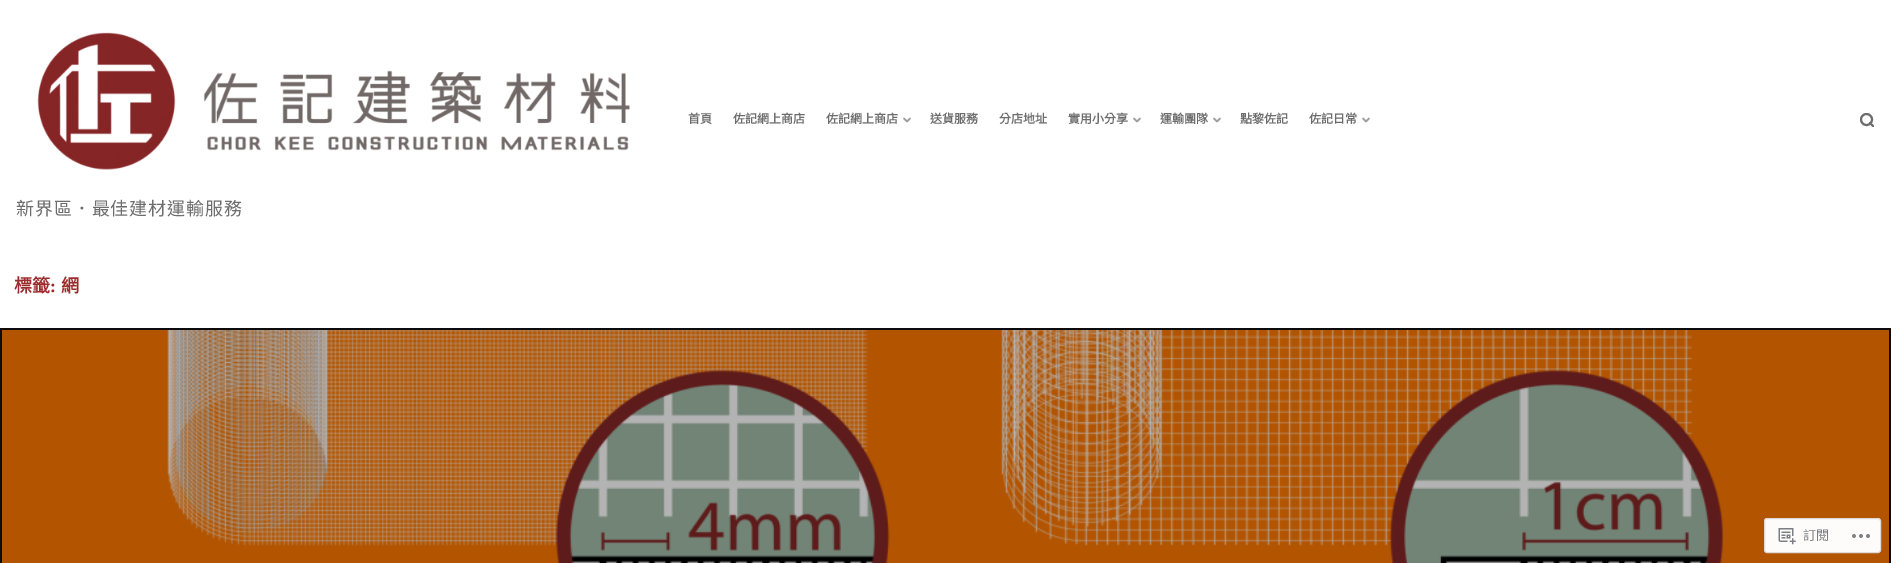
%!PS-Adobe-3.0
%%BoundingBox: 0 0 1891 563
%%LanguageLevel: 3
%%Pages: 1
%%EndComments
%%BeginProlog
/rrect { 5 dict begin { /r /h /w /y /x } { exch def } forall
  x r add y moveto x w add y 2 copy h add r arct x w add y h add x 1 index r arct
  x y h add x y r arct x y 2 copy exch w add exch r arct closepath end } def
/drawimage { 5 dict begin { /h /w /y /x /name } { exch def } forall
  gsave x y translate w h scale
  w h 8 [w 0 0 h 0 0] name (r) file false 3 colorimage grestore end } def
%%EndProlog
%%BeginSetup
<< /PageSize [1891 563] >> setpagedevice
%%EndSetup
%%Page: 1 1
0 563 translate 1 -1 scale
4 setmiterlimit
1 setgray
0 0 1891 563 rectfill
0.612 0.624 0.627 setrgbcolor
1.5 setlinewidth
1 setlinecap
1 setlinejoin
newpath 904 118.5 moveto 907 121.5 lineto 910 118.5 lineto stroke
newpath 1134 118.5 moveto 1137 121.5 lineto 1140 118.5 lineto stroke
newpath 1214 118.5 moveto 1217 121.5 lineto 1220 118.5 lineto stroke
newpath 1363 118.5 moveto 1366 121.5 lineto 1369 118.5 lineto stroke
0.427 setgray
2 setlinewidth
0 setlinecap
0 setlinejoin
newpath 1866.5 119.5 5.5 0 360 arc closepath stroke
1 setlinecap
1 setlinejoin
newpath 1873 126 moveto 1870 123 lineto stroke
(images/1.raw) 37 32 593 138 drawimage
0.047 0.047 0.055 setrgbcolor
0 setlinecap
0 setlinejoin
1 329 1889 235 rectstroke
(images/2.raw) 2 330 1887 233 drawimage
0.992 0.988 0.98 setrgbcolor
1764.5 518.5 116 34 2.5 rrect gsave fill grestore
0.859 0.851 0.855 setrgbcolor
1 setlinewidth
stroke
(images/3.raw) 1778 528 18 17 drawimage
(images/4.raw) 1852 534 18 4 drawimage
/NotoSansCJKTC-Bold [12 0 0 -12 0 0] selectfont
0.427 setgray
688 123 moveto (首頁) show
733 123 moveto (佐記網上商店) show
826 123 moveto (佐記網上商店) show
930 123 moveto (送貨服務) show
999 123 moveto (分店地址) show
1068 123 moveto (實用小分享) show
1160 123 moveto (運輸團隊) show
1240 123 moveto (點黎佐記) show
1309 123 moveto (佐記日常) show
/NotoSansCJKTC-Regular [18 0 0 -18 0 0] selectfont
16 215 moveto 0.9 0 (新界區．最佳建材運輸服務) ashow
/NotoSansCJKTC-Bold [18 0 0 -18 0 0] selectfont
0.612 0.173 0.173 setrgbcolor
14 292 moveto (標籤) show
/LiberationSerif-Bold [18 0 0 -18 0 0] selectfont
50 292 moveto (:) show
/NotoSansCJKTC-Bold [18 0 0 -18 0 0] selectfont
61 292 moveto (網) show
/NotoSansCJKTC-Regular [13 0 0 -13 0 0] selectfont
0.475 0.482 0.498 setrgbcolor
1803 540 moveto (訂閱) show
showpage
%%EOF
